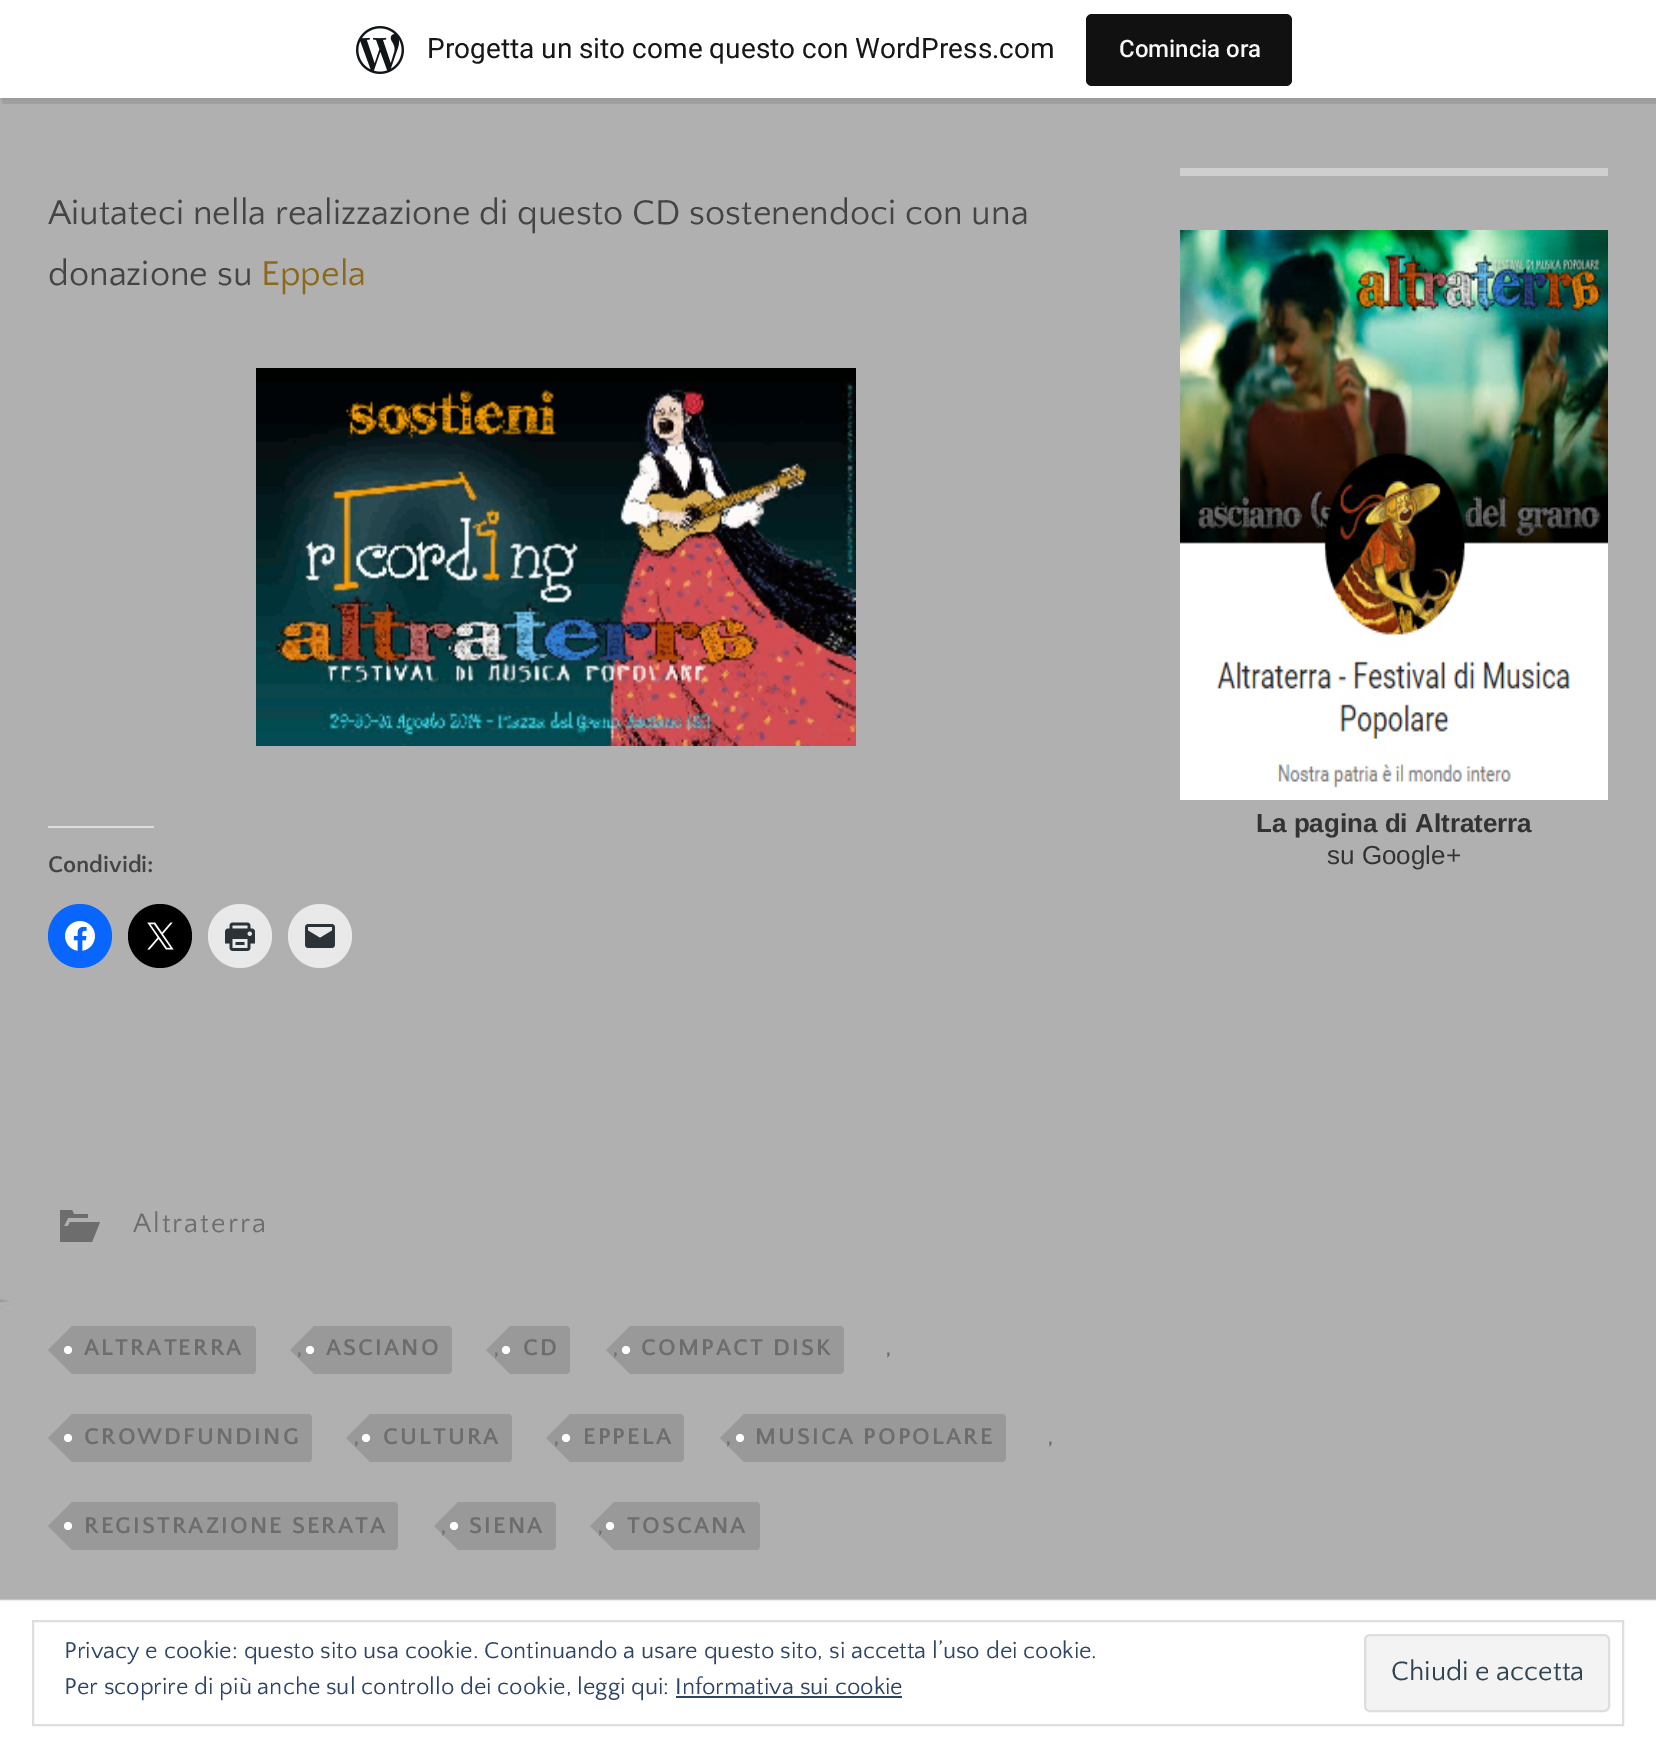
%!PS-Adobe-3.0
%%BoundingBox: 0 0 1656 1758
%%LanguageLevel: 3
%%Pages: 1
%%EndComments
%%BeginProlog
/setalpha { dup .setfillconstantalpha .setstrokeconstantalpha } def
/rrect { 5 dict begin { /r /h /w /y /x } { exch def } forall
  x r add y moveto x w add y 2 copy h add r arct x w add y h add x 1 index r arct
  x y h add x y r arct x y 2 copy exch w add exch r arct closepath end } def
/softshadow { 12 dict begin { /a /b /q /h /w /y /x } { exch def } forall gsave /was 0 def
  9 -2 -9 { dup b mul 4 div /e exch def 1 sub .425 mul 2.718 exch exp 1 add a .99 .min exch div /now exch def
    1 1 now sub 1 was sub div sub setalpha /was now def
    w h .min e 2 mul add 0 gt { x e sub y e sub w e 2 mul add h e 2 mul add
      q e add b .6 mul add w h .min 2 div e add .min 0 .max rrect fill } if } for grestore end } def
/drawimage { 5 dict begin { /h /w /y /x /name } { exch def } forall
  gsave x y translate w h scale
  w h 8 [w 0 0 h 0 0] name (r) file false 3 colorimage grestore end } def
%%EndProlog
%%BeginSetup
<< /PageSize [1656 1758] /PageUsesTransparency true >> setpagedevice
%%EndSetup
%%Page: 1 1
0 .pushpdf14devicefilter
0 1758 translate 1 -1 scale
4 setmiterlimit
1 setgray
0 0 1656 1758 rectfill
(images/1.raw) 0 98 1656 1503 drawimage
0 setgray
0 2 1656 98 0 2 0.05 softshadow
0.08 setalpha
newpath 2 98 moveto 2 104 lineto 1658 104 lineto 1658 6 lineto 1656 6 lineto 1656 98 lineto closepath fill
1 setalpha
1 setgray
0 0 1656 98 rectfill
(images/2.raw) 356 26 48 48 drawimage
0.067 setgray
1086 14 206 72 6 rrect fill
(images/3.raw) 256 368 600 378 drawimage
0.863 0.863 0.871 setrgbcolor
48 826 106 2 rectfill
0.031 0.4 1 setrgbcolor
newpath 80 936 32 0 360 arc closepath fill
(images/4.raw) 65 921 30 30 drawimage
0 setgray
newpath 160 936 32 0 360 arc closepath fill
(images/5.raw) 147 922 27 28 drawimage
0.914 setgray
newpath 240 936 32 0 360 arc closepath fill
(images/6.raw) 225 922 30 29 drawimage
newpath 320 936 32 0 360 arc closepath fill
(images/7.raw) 305 924 30 24 drawimage
0.427 setgray
newpath 70 1222 moveto 100 1222 lineto 92 1242 lineto 60 1242 lineto 60 1210 lineto 72 1210 lineto 74 1214 lineto 88 1214 lineto 88 1218 lineto 68 1218 lineto 64 1226 lineto 68 1226 lineto closepath fill
0.6 setgray
newpath 72 1326 moveto 252 1326 lineto 254 1326 256 1328 256 1330 curveto 256 1370 lineto 256 1372 254 1374 252 1374 curveto 72 1374 lineto closepath fill
newpath 72 1326 moveto 72 1374 lineto 48 1350 lineto closepath fill
1 setgray
newpath 68 1350 4 0 360 arc closepath fill
0.6 setgray
newpath 314 1326 moveto 448 1326 lineto 450 1326 452 1328 452 1330 curveto 452 1370 lineto 452 1372 450 1374 448 1374 curveto 314 1374 lineto closepath fill
newpath 510 1326 moveto 566 1326 lineto 568 1326 570 1328 570 1330 curveto 570 1370 lineto 570 1372 568 1374 566 1374 curveto 510 1374 lineto closepath fill
newpath 630 1326 moveto 840 1326 lineto 842 1326 844 1328 844 1330 curveto 844 1370 lineto 844 1372 842 1374 840 1374 curveto 630 1374 lineto closepath fill
newpath 72 1414 moveto 308 1414 lineto 310 1414 312 1416 312 1418 curveto 312 1458 lineto 312 1460 310 1462 308 1462 curveto 72 1462 lineto closepath fill
newpath 72 1414 moveto 72 1462 lineto 48 1438 lineto closepath fill
1 setgray
newpath 68 1438 4 0 360 arc closepath fill
0.6 setgray
newpath 370 1414 moveto 508 1414 lineto 510 1414 512 1416 512 1418 curveto 512 1458 lineto 512 1460 510 1462 508 1462 curveto 370 1462 lineto closepath fill
newpath 570 1414 moveto 680 1414 lineto 682 1414 684 1416 684 1418 curveto 684 1458 lineto 684 1460 682 1462 680 1462 curveto 570 1462 lineto closepath fill
newpath 744 1414 moveto 1002 1414 lineto 1004 1414 1006 1416 1006 1418 curveto 1006 1458 lineto 1006 1460 1004 1462 1002 1462 curveto 744 1462 lineto closepath fill
newpath 72 1502 moveto 394 1502 lineto 396 1502 398 1504 398 1506 curveto 398 1546 lineto 398 1548 396 1550 394 1550 curveto 72 1550 lineto closepath fill
newpath 72 1502 moveto 72 1550 lineto 48 1526 lineto closepath fill
1 setgray
newpath 68 1526 4 0 360 arc closepath fill
0.6 setgray
newpath 458 1502 moveto 552 1502 lineto 554 1502 556 1504 556 1506 curveto 556 1546 lineto 556 1548 554 1550 552 1550 curveto 458 1550 lineto closepath fill
newpath 614 1502 moveto 756 1502 lineto 758 1502 760 1504 760 1506 curveto 760 1546 lineto 760 1548 758 1550 756 1550 curveto 614 1550 lineto closepath fill
0.812 setgray
1180 168 428 8 rectfill
(images/8.raw) 1180 230 428 570 drawimage
0.871 setgray
2 setlinewidth
33 1621 1590 104 rectstroke
0.953 setgray
1365 1635 244 76 5 rrect gsave fill grestore
0.871 setgray
stroke
0.18 0.267 0.404 setrgbcolor
676 1696 226 2 rectfill
/Roboto-Regular [28 0 0 -28 0 0] selectfont
0.09 setgray
427 58 moveto (Progetta un sito come questo con WordPress.com) show
/Roboto-Medium [24 0 0 -24 0 0] selectfont
0.965 0.969 0.969 setrgbcolor
1119 57 moveto (Comincia ora) show
/QuattrocentoSans-Regular [36 0 0 -36 0 0] selectfont
0.267 setgray
48 224 moveto (Aiutateci nella realizzazione di questo CD sostenendoci con una) show
48 285 moveto (donazione su) show
0.545 0.408 0.11 setrgbcolor
261 285 moveto (Eppela) show
/QuattrocentoSans-Bold [24 0 0 -24 0 0] selectfont
0.267 setgray
48 872 moveto (Condividi:) show
/QuattrocentoSans-Regular [28 0 0 -28 0 0] selectfont
0.427 setgray
133 1232 moveto 2 0 (Altraterra) ashow
/QuattrocentoSans-Bold [24 0 0 -24 0 0] selectfont
84 1355 moveto 2 0 (ALTRATERRA) ashow
/QuattrocentoSans-Regular [28 0 0 -28 0 0] selectfont
296 1355 moveto 2 0 (,) ashow
0.4 setalpha
0.463 setgray
newpath 314 1326 moveto 314 1374 lineto 290 1350 lineto closepath fill
/QuattrocentoSans-Bold [24 0 0 -24 0 0] selectfont
1 setalpha
0.427 setgray
326 1355 moveto 2 0 (ASCIANO) ashow
1 setgray
newpath 310 1350 4 0 360 arc closepath fill
/QuattrocentoSans-Regular [28 0 0 -28 0 0] selectfont
0.427 setgray
493 1355 moveto 2 0 (,) ashow
0.4 setalpha
0.463 setgray
newpath 510 1326 moveto 510 1374 lineto 486 1350 lineto closepath fill
/QuattrocentoSans-Bold [24 0 0 -24 0 0] selectfont
1 setalpha
0.427 setgray
523 1355 moveto 2 0 (CD) ashow
1 setgray
newpath 506 1350 4 0 360 arc closepath fill
/QuattrocentoSans-Regular [28 0 0 -28 0 0] selectfont
0.427 setgray
612 1355 moveto 2 0 (,) ashow
0.4 setalpha
0.463 setgray
newpath 630 1326 moveto 630 1374 lineto 606 1350 lineto closepath fill
/QuattrocentoSans-Bold [24 0 0 -24 0 0] selectfont
1 setalpha
0.427 setgray
641 1355 moveto 2 0 (COMPACT DISK) ashow
1 setgray
newpath 626 1350 4 0 360 arc closepath fill
/QuattrocentoSans-Regular [28 0 0 -28 0 0] selectfont
0.427 setgray
885 1355 moveto 2 0 (,) ashow
/QuattrocentoSans-Bold [24 0 0 -24 0 0] selectfont
84 1444 moveto 2 0 (CROWDFUNDING) ashow
/QuattrocentoSans-Regular [28 0 0 -28 0 0] selectfont
353 1444 moveto 2 0 (,) ashow
0.4 setalpha
0.463 setgray
newpath 370 1414 moveto 370 1462 lineto 346 1438 lineto closepath fill
/QuattrocentoSans-Bold [24 0 0 -24 0 0] selectfont
1 setalpha
0.427 setgray
383 1444 moveto 2 0 (CULTURA) ashow
1 setgray
newpath 366 1438 4 0 360 arc closepath fill
/QuattrocentoSans-Regular [28 0 0 -28 0 0] selectfont
0.427 setgray
553 1444 moveto 2 0 (,) ashow
0.4 setalpha
0.463 setgray
newpath 570 1414 moveto 570 1462 lineto 546 1438 lineto closepath fill
/QuattrocentoSans-Bold [24 0 0 -24 0 0] selectfont
1 setalpha
0.427 setgray
583 1444 moveto 2 0 (EPPELA) ashow
1 setgray
newpath 566 1438 4 0 360 arc closepath fill
/QuattrocentoSans-Regular [28 0 0 -28 0 0] selectfont
0.427 setgray
725 1444 moveto 2 0 (,) ashow
0.4 setalpha
0.463 setgray
newpath 744 1414 moveto 744 1462 lineto 720 1438 lineto closepath fill
/QuattrocentoSans-Bold [24 0 0 -24 0 0] selectfont
1 setalpha
0.427 setgray
755 1444 moveto 2 0 (MUSICA POPOLARE) ashow
1 setgray
newpath 740 1438 4 0 360 arc closepath fill
/QuattrocentoSans-Regular [28 0 0 -28 0 0] selectfont
0.427 setgray
1047 1444 moveto 2 0 (,) ashow
/QuattrocentoSans-Bold [24 0 0 -24 0 0] selectfont
84 1533 moveto 2 0 (REGISTRAZIONE SERATA) ashow
/QuattrocentoSans-Regular [28 0 0 -28 0 0] selectfont
440 1533 moveto 2 0 (,) ashow
0.4 setalpha
0.463 setgray
newpath 458 1502 moveto 458 1550 lineto 434 1526 lineto closepath fill
/QuattrocentoSans-Bold [24 0 0 -24 0 0] selectfont
1 setalpha
0.427 setgray
469 1533 moveto 2 0 (SIENA) ashow
1 setgray
newpath 454 1526 4 0 360 arc closepath fill
/QuattrocentoSans-Regular [28 0 0 -28 0 0] selectfont
0.427 setgray
597 1533 moveto 2 0 (,) ashow
0.4 setalpha
0.463 setgray
newpath 614 1502 moveto 614 1550 lineto 590 1526 lineto closepath fill
/QuattrocentoSans-Bold [24 0 0 -24 0 0] selectfont
1 setalpha
0.427 setgray
627 1533 moveto 2 0 (TOSCANA) ashow
1 setgray
newpath 610 1526 4 0 360 arc closepath fill
/LiberationSans-Bold [26 0 0 -26 0 0] selectfont
0.2 setgray
1256 832 moveto (La pagina di Altraterra) show
/LiberationSans-Regular [26 0 0 -26 0 0] selectfont
1327 864 moveto (su Google+) show
/QuattrocentoSans-Regular [24 0 0 -24 0 0] selectfont
0.18 0.267 0.404 setrgbcolor
64 1658 moveto (Privacy e cookie: questo sito usa cookie. Continuando a usare questo sito, si accetta l’uso dei cookie.) show
/QuattrocentoSans-Regular [28 0 0 -28 0 0] selectfont
0.18 0.267 0.325 setrgbcolor
1391 1680 moveto (Chiudi e accetta) show
/QuattrocentoSans-Regular [24 0 0 -24 0 0] selectfont
0.18 0.267 0.404 setrgbcolor
64 1694 moveto (Per scoprire di più anche sul controllo dei cookie, leggi qui: Informativa sui cookie) show
.poppdf14devicefilter showpage
%%EOF
